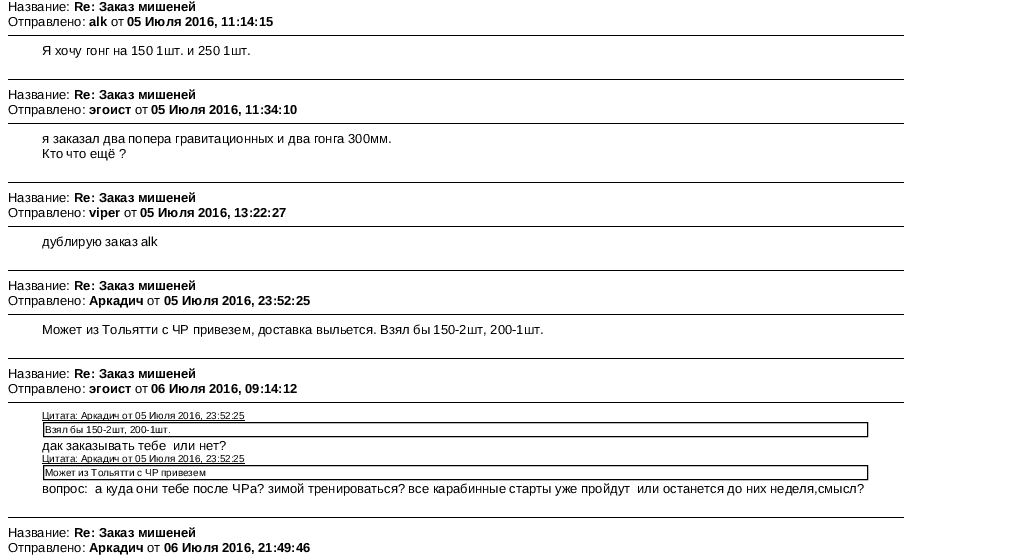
%!PS-Adobe-3.0
%%BoundingBox: 0 0 1011 560
%%LanguageLevel: 3
%%Pages: 1
%%EndComments
%%BeginProlog
%%EndProlog
%%BeginSetup
<< /PageSize [1011 560] >> setpagedevice
%%EndSetup
%%Page: 1 1
0 560 translate 1 -1 scale
4 setmiterlimit
1 setgray
0 0 1011 560 rectfill
0 setgray
8 35 896 1 rectfill
8 79 896 1 rectfill
8 123 896 1 rectfill
8 182 896 1 rectfill
8 226 896 1 rectfill
8 270 896 1 rectfill
8 314 896 1 rectfill
8 358 896 1 rectfill
8 402 896 1 rectfill
42 420 203 1 rectfill
43.5 422.5 824 14 rectstroke
42 463 203 1 rectfill
43.5 465.5 824 14 rectstroke
8 517 896 1 rectfill
/LiberationSans-Regular [13 0 0 -13 0 0] selectfont
8 11 moveto (Название:) show
/LiberationSans-Bold [13 0 0 -13 0 0] selectfont
74 11 moveto (Re: Заказ мишеней) show
/LiberationSans-Regular [13 0 0 -13 0 0] selectfont
8 26 moveto (Отправлено:) show
/LiberationSans-Bold [13 0 0 -13 0 0] selectfont
89 26 moveto (alk) show
/LiberationSans-Regular [13 0 0 -13 0 0] selectfont
111 26 moveto (от) show
/LiberationSans-Bold [13 0 0 -13 0 0] selectfont
127 26 moveto (05 Июля 2016, 11:14:15) show
/LiberationSans-Regular [13 0 0 -13 0 0] selectfont
42 55 moveto (Я хочу гонг на 150 1шт. и 250 1шт.) show
8 99 moveto (Название:) show
/LiberationSans-Bold [13 0 0 -13 0 0] selectfont
74 99 moveto (Re: Заказ мишеней) show
/LiberationSans-Regular [13 0 0 -13 0 0] selectfont
8 114 moveto (Отправлено:) show
/LiberationSans-Bold [13 0 0 -13 0 0] selectfont
89 114 moveto (эгоист) show
/LiberationSans-Regular [13 0 0 -13 0 0] selectfont
135 114 moveto (от) show
/LiberationSans-Bold [13 0 0 -13 0 0] selectfont
151 114 moveto (05 Июля 2016, 11:34:10) show
/LiberationSans-Regular [13 0 0 -13 0 0] selectfont
42 143 moveto (я заказал два попера гравитационных и два гонга 300мм.) show
42 158 moveto (Кто что ещё ?) show
8 202 moveto (Название:) show
/LiberationSans-Bold [13 0 0 -13 0 0] selectfont
74 202 moveto (Re: Заказ мишеней) show
/LiberationSans-Regular [13 0 0 -13 0 0] selectfont
8 217 moveto (Отправлено:) show
/LiberationSans-Bold [13 0 0 -13 0 0] selectfont
89 217 moveto (viper) show
/LiberationSans-Regular [13 0 0 -13 0 0] selectfont
124 217 moveto (от) show
/LiberationSans-Bold [13 0 0 -13 0 0] selectfont
140 217 moveto (05 Июля 2016, 13:22:27) show
/LiberationSans-Regular [13 0 0 -13 0 0] selectfont
42 246 moveto (дублирую заказ alk) show
8 290 moveto (Название:) show
/LiberationSans-Bold [13 0 0 -13 0 0] selectfont
74 290 moveto (Re: Заказ мишеней) show
/LiberationSans-Regular [13 0 0 -13 0 0] selectfont
8 305 moveto (Отправлено:) show
/LiberationSans-Bold [13 0 0 -13 0 0] selectfont
89 305 moveto (Аркадич) show
/LiberationSans-Regular [13 0 0 -13 0 0] selectfont
147 305 moveto (от) show
/LiberationSans-Bold [13 0 0 -13 0 0] selectfont
164 305 moveto (05 Июля 2016, 23:52:25) show
/LiberationSans-Regular [13 0 0 -13 0 0] selectfont
42 334 moveto (Может из Тольятти с ЧР привезем, доставка выльется. Взял бы 150-2шт, 200-1шт.) show
8 378 moveto (Название:) show
/LiberationSans-Bold [13 0 0 -13 0 0] selectfont
74 378 moveto (Re: Заказ мишеней) show
/LiberationSans-Regular [13 0 0 -13 0 0] selectfont
8 393 moveto (Отправлено:) show
/LiberationSans-Bold [13 0 0 -13 0 0] selectfont
89 393 moveto (эгоист) show
/LiberationSans-Regular [13 0 0 -13 0 0] selectfont
135 393 moveto (от) show
/LiberationSans-Bold [13 0 0 -13 0 0] selectfont
151 393 moveto (06 Июля 2016, 09:14:12) show
/LiberationSans-Regular [10 0 0 -10 0 0] selectfont
42 419 moveto (Цитата: Аркадич от 05 Июля 2016, 23:52:25) show
45 433 moveto (Взял бы 150-2шт, 200-1шт.) show
/LiberationSans-Regular [13 0 0 -13 0 0] selectfont
42 450 moveto (дак заказывать тебе  или нет?) show
/LiberationSans-Regular [10 0 0 -10 0 0] selectfont
42 462 moveto (Цитата: Аркадич от 05 Июля 2016, 23:52:25) show
45 476 moveto (Может из Тольятти с ЧР привезем) show
/LiberationSans-Regular [13 0 0 -13 0 0] selectfont
42 493 moveto (вопрос:  а куда они тебе после ЧРа? зимой тренироваться? все карабинные старты уже пройдут  или останется до них неделя,смысл?) show
8 537 moveto (Название:) show
/LiberationSans-Bold [13 0 0 -13 0 0] selectfont
74 537 moveto (Re: Заказ мишеней) show
/LiberationSans-Regular [13 0 0 -13 0 0] selectfont
8 552 moveto (Отправлено:) show
/LiberationSans-Bold [13 0 0 -13 0 0] selectfont
89 552 moveto (Аркадич) show
/LiberationSans-Regular [13 0 0 -13 0 0] selectfont
147 552 moveto (от) show
/LiberationSans-Bold [13 0 0 -13 0 0] selectfont
164 552 moveto (06 Июля 2016, 21:49:46) show
showpage
%%EOF
